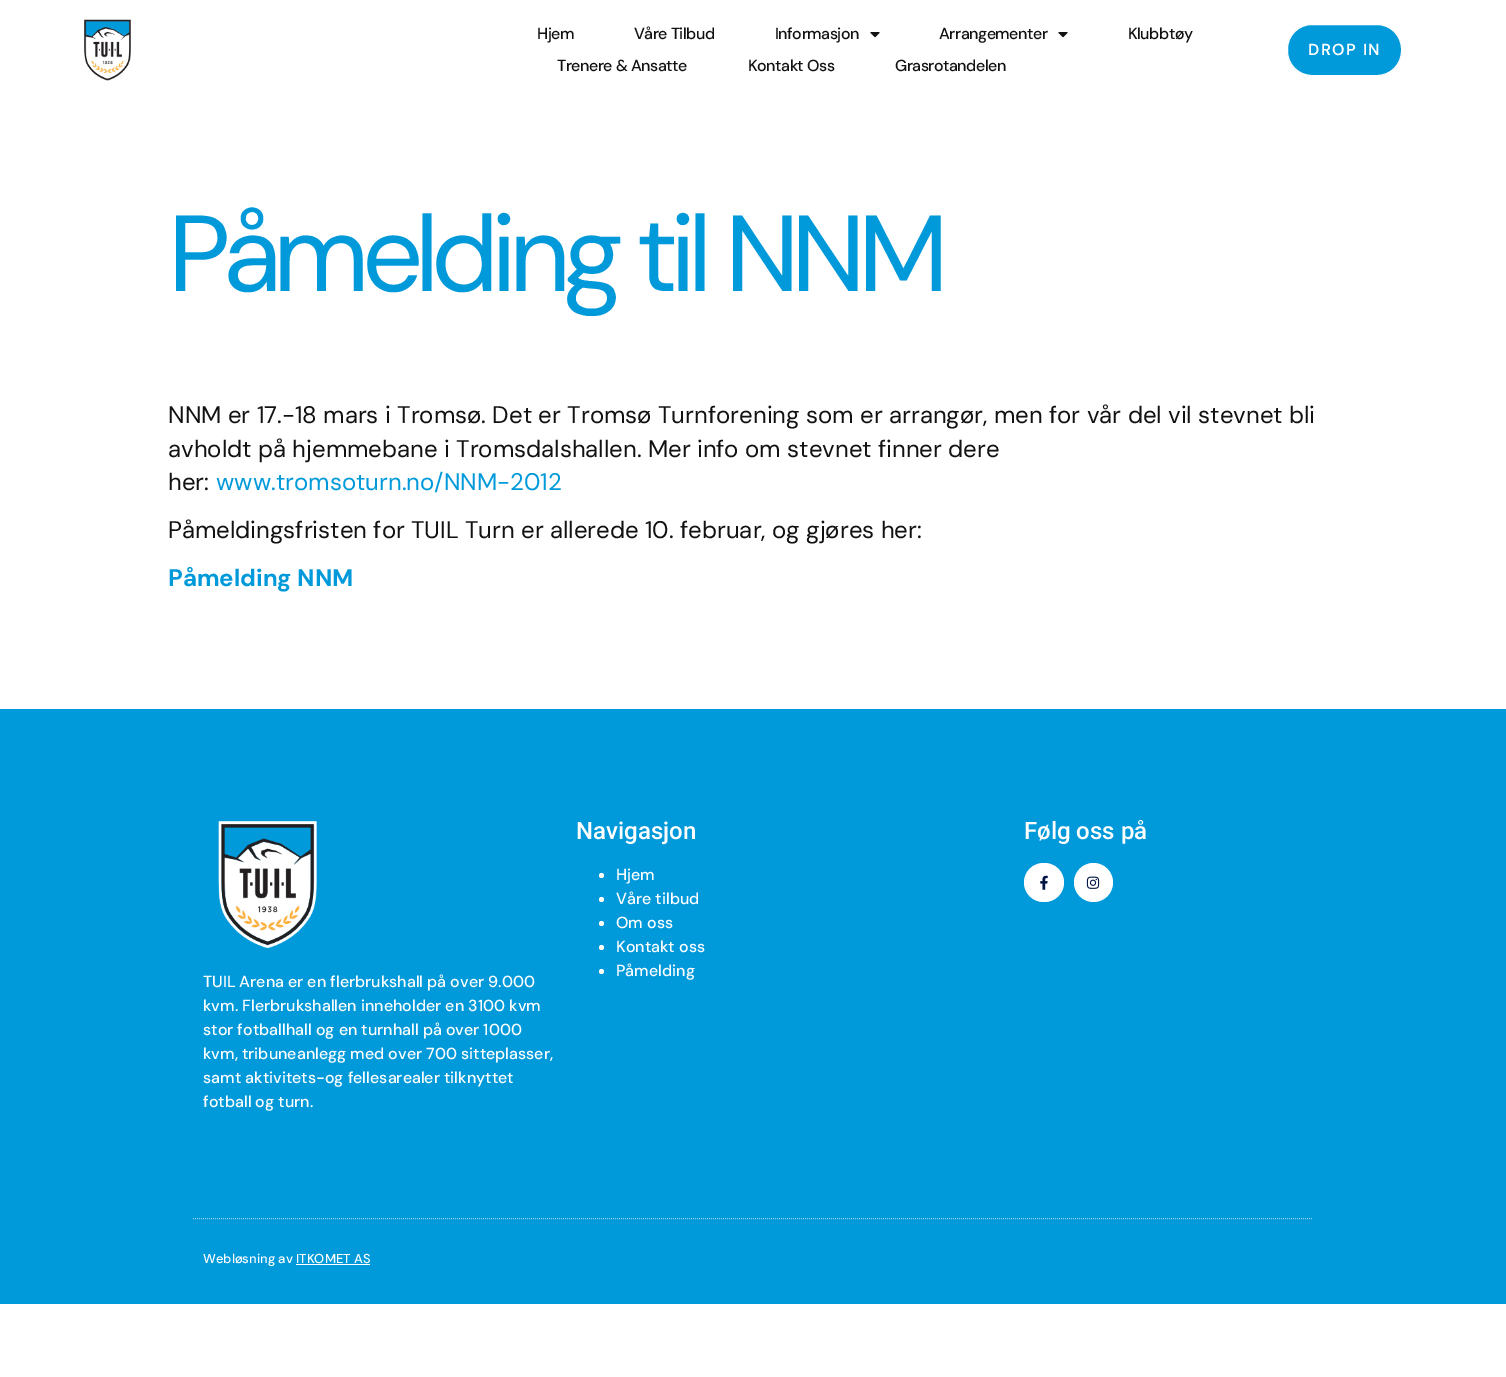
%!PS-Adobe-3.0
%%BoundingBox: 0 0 1506 1377
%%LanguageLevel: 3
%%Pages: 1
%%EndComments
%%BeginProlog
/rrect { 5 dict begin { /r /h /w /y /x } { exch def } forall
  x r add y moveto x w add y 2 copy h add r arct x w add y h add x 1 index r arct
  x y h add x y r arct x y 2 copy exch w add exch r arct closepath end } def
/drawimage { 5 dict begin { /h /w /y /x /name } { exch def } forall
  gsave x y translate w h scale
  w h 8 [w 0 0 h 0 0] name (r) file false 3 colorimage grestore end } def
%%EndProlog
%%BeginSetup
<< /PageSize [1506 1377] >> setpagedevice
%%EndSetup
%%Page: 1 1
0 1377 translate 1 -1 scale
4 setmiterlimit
1 setgray
0 0 1506 1377 rectfill
(images/1.raw) 84 19 47 62 drawimage
(images/2.raw) 870 32 10 6 drawimage
(images/2.raw) 1058 32 10 6 drawimage
0 0.6 0.855 setrgbcolor
1287.5 24.5 114 51 24.5 rrect gsave fill grestore
1 setgray
stroke
0 0.6 0.855 setrgbcolor
0 709 1506 595 rectfill
1 setgray
newpath 601.5 875.5 2.5 0 360 arc closepath fill
newpath 601.5 899.5 2.5 0 360 arc closepath fill
newpath 601.5 923.5 2.5 0 360 arc closepath fill
newpath 601.5 947.5 2.5 0 360 arc closepath fill
newpath 601.5 971.5 2.5 0 360 arc closepath fill
1024 863 40 39 19.5 rrect fill
(images/3.raw) 1040 875 8 15 drawimage
newpath 1093.5 882.5 19.5 0 360 arc closepath fill
(images/4.raw) 1086 876 14 13 drawimage
(images/5.raw) 218 821 99 128 drawimage
0.588 0.835 0.941 setrgbcolor
[1 1] 0 setdash
newpath 193 1218.5 moveto 1313 1218.5 lineto stroke
1 setgray
296 1264 74 1 rectfill
/DMSans-Medium [16 0 0 -16 0 0] selectfont
0.071 setgray
537 39 moveto -0.5 0 (Hjem) ashow
634 39 moveto -0.5 0 (Våre Tilbud) ashow
775 39 moveto -0.5 0 (Informasjon) ashow
939 39 moveto -0.5 0 (Arrangementer) ashow
1128 39 moveto -0.5 0 (Klubbtøy) ashow
557 71 moveto -0.5 0 (Trenere & Ansatte) ashow
748 71 moveto -0.5 0 (Kontakt Oss) ashow
895 71 moveto -0.5 0 (Grasrotandelen) ashow
/DMSans-SemiBold [16 0 0 -16 0 0] selectfont
1 setgray
1308 55 moveto 1.5 0 (DROP IN) ashow
/DMSans-Regular [108 0 0 -108 0 0] selectfont
0 0.6 0.855 setrgbcolor
168 291 moveto -8 0 (Påmelding til NNM) ashow
/DMSans-Regular [24 0 0 -24 0 0] selectfont
0.071 setgray
168 423 moveto (NNM er 17.-18 mars i Tromsø. Det er Tromsø Turnforening som er arrangør, men for vår del vil stevnet bli) show
168 457 moveto (avholdt på hjemmebane i Tromsdalshallen. Mer info om stevnet finner dere) show
168 490 moveto (her:) show
0 0.6 0.855 setrgbcolor
216 490 moveto (www.tromsoturn.no/NNM-2012) show
0.071 setgray
168 538 moveto (Påmeldingsfristen for TUIL Turn er allerede 10. februar, og gjøres her:) show
/DMSans-Bold [24 0 0 -24 0 0] selectfont
0 0.6 0.855 setrgbcolor
168 586 moveto (Påmelding NNM) show
/Roboto-Medium [24 0 0 -24 0 0] selectfont
1 setgray
576 839 moveto (Navigasjon) show
/DMSans-Medium [16 0 0 -16 0 0] selectfont
616 880 moveto (Hjem) show
616 904 moveto (Våre tilbud) show
616 928 moveto (Om oss) show
616 952 moveto (Kontakt oss) show
616 976 moveto (Påmelding) show
/Roboto-Medium [24 0 0 -24 0 0] selectfont
1024 839 moveto (Følg oss på) show
/DMSans-Medium [16 0 0 -16 0 0] selectfont
203 987 moveto (TUIL Arena er en flerbrukshall på over 9.000) show
203 1011 moveto (kvm. Flerbrukshallen inneholder en 3100 kvm) show
203 1035 moveto (stor fotballhall og en turnhall på over 1000) show
203 1059 moveto (kvm, tribuneanlegg med over 700 sitteplasser,) show
203 1083 moveto (samt aktivitets-og fellesarealer tilknyttet) show
203 1107 moveto (fotball og turn.) show
/DMSans-Medium [13 0 0 -13 0 0] selectfont
203 1263 moveto (Webløsning av ITKOMET AS) show
showpage
%%EOF
